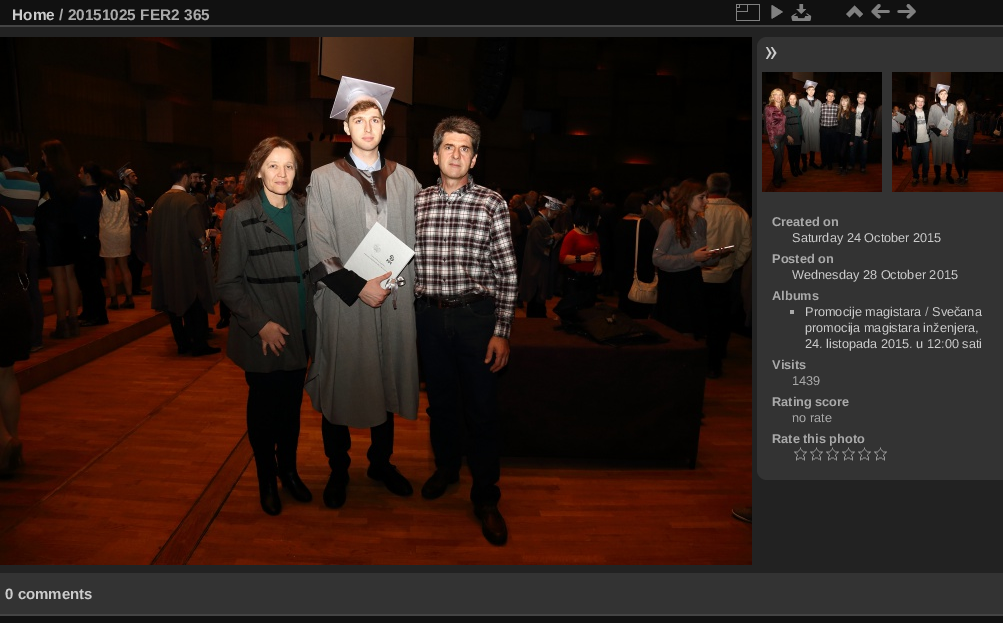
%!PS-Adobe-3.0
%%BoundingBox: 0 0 1003 623
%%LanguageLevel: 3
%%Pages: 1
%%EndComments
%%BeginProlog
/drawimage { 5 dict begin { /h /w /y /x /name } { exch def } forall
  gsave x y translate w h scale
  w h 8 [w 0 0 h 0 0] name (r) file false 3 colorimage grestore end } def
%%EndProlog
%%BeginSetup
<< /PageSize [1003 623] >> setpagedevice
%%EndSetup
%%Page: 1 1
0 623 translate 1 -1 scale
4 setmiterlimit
0.067 setgray
0 0 1003 623 rectfill
0.133 setgray
0 27 1003 546 rectfill
0.267 setgray
0 614 1003 2 rectfill
0 25 1003 2 rectfill
(images/1.raw) 736 4 24 17 drawimage
(images/2.raw) 771 5 12 14 drawimage
(images/3.raw) 791 4 21 17 drawimage
(images/4.raw) 846 5 17 13 drawimage
(images/5.raw) 871 4 19 15 drawimage
(images/6.raw) 897 4 19 15 drawimage
(images/7.raw) 0 37 752 528 drawimage
0.2 setgray
newpath 767 37 moveto 1003 37 lineto 1003 480 lineto 767 480 lineto 761.5 480 757 475.5 757 470 curveto 757 47 lineto 757 41.5 761.5 37 767 37 curveto closepath fill
(images/8.raw) 765 47 12 12 drawimage
(images/9.raw) 762 72 120 120 drawimage
(images/10.raw) 892 72 111 120 drawimage
0.667 setgray
790 310 4 4 rectfill
(images/11.raw) 794 447 13 14 drawimage
(images/11.raw) 810 447 13 14 drawimage
(images/11.raw) 826 447 13 14 drawimage
(images/11.raw) 842 447 13 14 drawimage
(images/11.raw) 858 447 13 14 drawimage
(images/11.raw) 874 447 13 14 drawimage
0.2 setgray
0 573 1003 41 rectfill
/LiberationSans-Bold [15.4 0 0 -15.4 0 0] selectfont
0.8 setgray
12 20 moveto (Home) show
0.667 setgray
59 20 moveto (/ 20151025 FER2 365) show
/LiberationSans-Bold [12.75 0 0 -12.75 0 0] selectfont
772 226 moveto (Created on) show
/LiberationSans-Regular [12.75 0 0 -12.75 0 0] selectfont
0.8 setgray
792 242 moveto (Saturday 24 October 2015) show
/LiberationSans-Bold [12.75 0 0 -12.75 0 0] selectfont
0.667 setgray
772 263 moveto (Posted on) show
/LiberationSans-Regular [12.75 0 0 -12.75 0 0] selectfont
0.8 setgray
792 279 moveto (Wednesday 28 October 2015) show
/LiberationSans-Bold [12.75 0 0 -12.75 0 0] selectfont
0.667 setgray
772 300 moveto (Albums) show
/LiberationSans-Regular [12.75 0 0 -12.75 0 0] selectfont
0.8 setgray
805 316 moveto (Promocije magistara) show
0.667 setgray
925 316 moveto (/) show
0.8 setgray
932 316 moveto (Svečana) show
805 332 moveto (promocija magistara inženjera,) show
805 348 moveto (24. listopada 2015. u 12:00 sati) show
/LiberationSans-Bold [12.75 0 0 -12.75 0 0] selectfont
0.667 setgray
772 369 moveto (Visits) show
/LiberationSans-Regular [12.75 0 0 -12.75 0 0] selectfont
792 385 moveto (1439) show
/LiberationSans-Bold [12.75 0 0 -12.75 0 0] selectfont
772 406 moveto (Rating score) show
/LiberationSans-Regular [12.75 0 0 -12.75 0 0] selectfont
792 422 moveto (no rate) show
/LiberationSans-Bold [12.75 0 0 -12.75 0 0] selectfont
772 443 moveto (Rate this photo) show
/LiberationSans-Bold [15 0 0 -15 0 0] selectfont
0.8 setgray
5 599 moveto (0 comments) show
showpage
%%EOF
